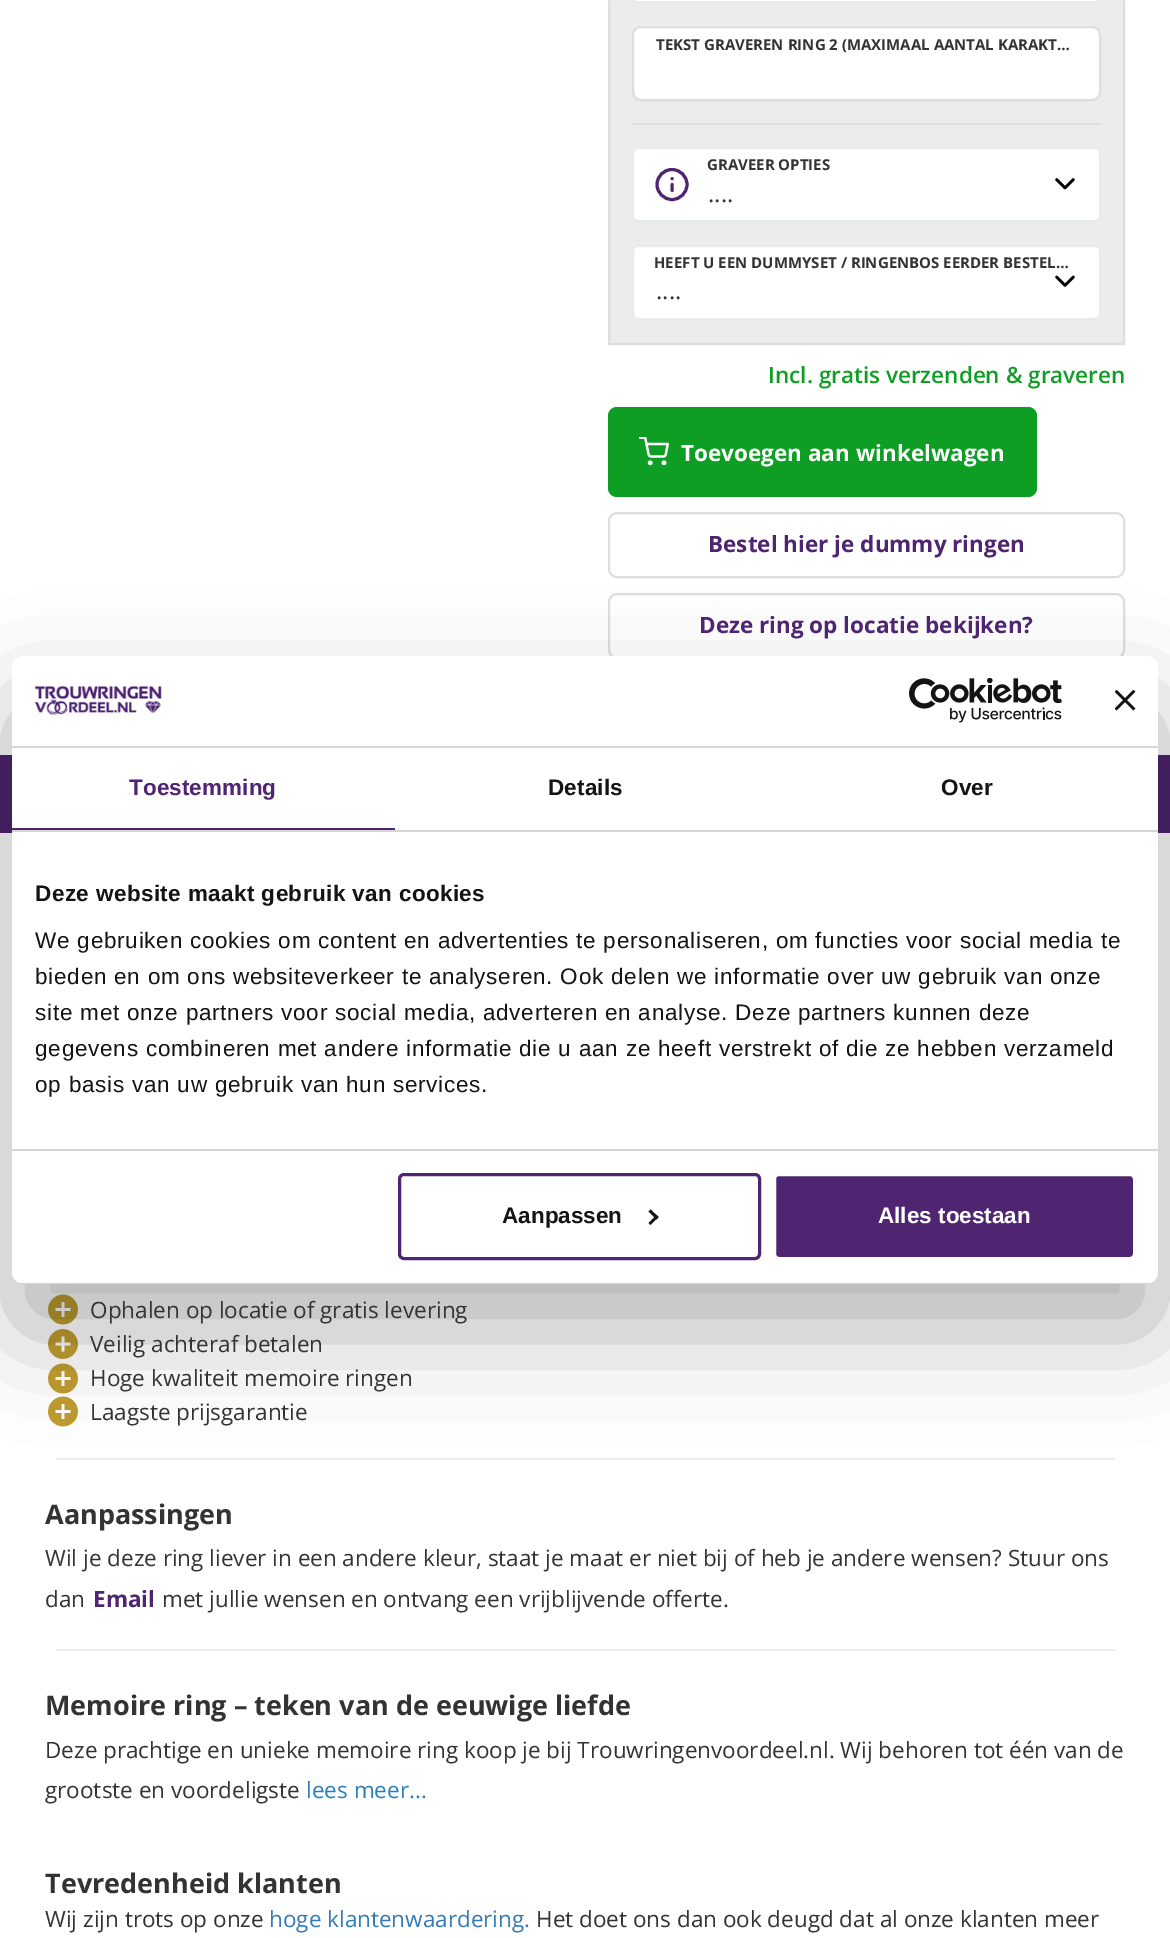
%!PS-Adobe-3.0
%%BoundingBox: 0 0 1170 1938
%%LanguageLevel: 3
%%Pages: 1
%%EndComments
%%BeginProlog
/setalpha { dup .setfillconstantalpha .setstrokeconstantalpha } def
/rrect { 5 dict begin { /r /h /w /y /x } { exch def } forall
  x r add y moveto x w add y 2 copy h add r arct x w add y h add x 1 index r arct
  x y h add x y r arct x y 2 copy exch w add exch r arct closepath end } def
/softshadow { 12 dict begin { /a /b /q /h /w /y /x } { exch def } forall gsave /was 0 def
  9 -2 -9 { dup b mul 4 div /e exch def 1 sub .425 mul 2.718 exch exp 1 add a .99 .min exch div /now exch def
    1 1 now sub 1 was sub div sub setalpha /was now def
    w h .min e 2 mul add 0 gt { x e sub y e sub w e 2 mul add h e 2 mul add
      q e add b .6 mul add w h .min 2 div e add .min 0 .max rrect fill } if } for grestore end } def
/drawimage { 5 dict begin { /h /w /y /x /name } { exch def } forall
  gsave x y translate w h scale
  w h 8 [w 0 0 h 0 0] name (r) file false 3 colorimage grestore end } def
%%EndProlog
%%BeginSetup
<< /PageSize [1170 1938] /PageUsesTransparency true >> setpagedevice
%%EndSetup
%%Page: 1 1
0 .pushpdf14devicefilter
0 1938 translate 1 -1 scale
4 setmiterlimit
1 setgray
0 0 1170 1938 rectfill
0.925 setgray
newpath 609 -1 moveto 1124 -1 lineto 1124 344 lineto 609 344 lineto closepath gsave fill grestore
0.871 setgray
2 setlinewidth
stroke
632 123 469 2 rectfill
1 setgray
633 -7 467 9 5 rrect gsave fill grestore
0.91 0.922 0.925 setrgbcolor
stroke
1 setgray
633 27 467 73 8 rrect gsave fill grestore
0.871 setgray
stroke
1 setgray
1097 30 1 1 rectfill
632 147 469 75 6 rrect fill
(images/1.raw) 1055 178 20 12 drawimage
0.91 0.922 0.925 setrgbcolor
633 148 467 73 5 rrect stroke
0.31 0.145 0.443 setrgbcolor
3 setlinewidth
newpath 672 184.5 15 0 360 arc closepath stroke
1 setlinecap
1 setlinejoin
newpath 672 190.5 moveto 672 184.5 lineto 672 178.5 moveto 672 178.5 lineto stroke
1 setgray
632 245 469 75 6 rrect fill
(images/2.raw) 1055 275 20 12 drawimage
0.91 0.922 0.925 setrgbcolor
2 setlinewidth
0 setlinecap
0 setlinejoin
633 246 467 73 5 rrect stroke
0.055 0.62 0.141 setrgbcolor
608 407 429 90 9 rrect fill
(images/3.raw) 639 437 30 29 drawimage
0.871 setgray
609 513 515 64 8 rrect stroke
609 594 515 64 8 rrect stroke
0.31 0.145 0.443 setrgbcolor
0 755 1170 78 rectfill
(images/4.raw) 48 1294 30 31 drawimage
(images/5.raw) 48 1329 30 30 drawimage
(images/4.raw) 48 1363 30 31 drawimage
(images/4.raw) 48 1396 30 31 drawimage
0.933 setgray
56 1458 1059 2 rectfill
56 1649 1059 2 rectfill
0 setgray
12 704 1146 628 12 51 0.3 softshadow
1 setgray
12 656 1146 628 12 rrect fill
0.839 setgray
12 746 1146 2 rectfill
(images/6.raw) 34 685 128 30 drawimage
(images/7.raw) 909 678 153 45 drawimage
(images/8.raw) 1115 690 21 21 drawimage
12 830 1146 2 rectfill
0.31 0.145 0.443 setrgbcolor
12 828 383 2 rectfill
0.839 setgray
12 1149 1146 2 rectfill
gsave
12 656 1146 628 12 rrect clip newpath
12 1283 1146 1 rectfill
grestore
0.31 0.145 0.443 setrgbcolor
3 setlinewidth
399.5 1174.5 360 84 4.5 rrect stroke
0.078 setgray
newpath 650.5 1209.5 moveto 658.5 1217 lineto 656.5 1219.5 lineto 648.5 1211.5 lineto closepath fill
newpath 656.5 1215 moveto 658.5 1217 lineto 650.5 1225 lineto 648.5 1223 lineto closepath fill
0.31 0.145 0.443 setrgbcolor
774.5 1174.5 360 84 4.5 rrect gsave fill grestore
1 setgray
stroke
/OpenSans-Bold [15 0 0 -15 0 0] selectfont
0.2 setgray
656 50 moveto (TEKST GRAVEREN RING 2 \(MAXIMAAL AANTAL KARAKT…) show
707 170 moveto (GRAVEER OPTIES) show
/OpenSans-Regular [24 0 0 -24 0 0] selectfont
708 202 moveto (....) show
/OpenSans-Bold [15 0 0 -15 0 0] selectfont
654 268 moveto (HEEFT U EEN DUMMYSET / RINGENBOS EERDER BESTEL…) show
/OpenSans-Regular [24 0 0 -24 0 0] selectfont
656 299 moveto (....) show
/OpenSans-SemiBold [22.5 0 0 -22.5 0 0] selectfont
0.055 0.62 0.141 setrgbcolor
768 383 moveto (Incl. gratis verzenden & graveren) show
/OpenSans-Bold [22.5 0 0 -22.5 0 0] selectfont
1 setgray
681 461 moveto (Toevoegen aan winkelwagen) show
0.31 0.145 0.443 setrgbcolor
708 552 moveto (Bestel hier je dummy ringen) show
699 633 moveto (Deze ring op locatie bekijken?) show
/OpenSans-Regular [22.5 0 0 -22.5 0 0] selectfont
0.2 setgray
90 1318 moveto (Ophalen op locatie of gratis levering) show
90 1352 moveto (Veilig achteraf betalen) show
90 1386 moveto (Hoge kwaliteit memoire ringen) show
90 1420 moveto (Laagste prijsgarantie) show
/OpenSans-Bold [27 0 0 -27 0 0] selectfont
45 1524 moveto (Aanpassingen) show
/OpenSans-Regular [22.5 0 0 -22.5 0 0] selectfont
45 1566 moveto (Wil je deze ring liever in een andere kleur, staat je maat er niet bij of heb je andere wensen? Stuur ons) show
45 1607 moveto (dan) show
/OpenSans-Bold [22.5 0 0 -22.5 0 0] selectfont
0.31 0.145 0.443 setrgbcolor
93 1607 moveto (Email) show
/OpenSans-Regular [22.5 0 0 -22.5 0 0] selectfont
0.2 setgray
162 1607 moveto (met jullie wensen en ontvang een vrijblijvende offerte.) show
/OpenSans-Bold [27 0 0 -27 0 0] selectfont
45 1715 moveto (Memoire ring – teken van de eeuwige liefde) show
/OpenSans-Regular [22.5 0 0 -22.5 0 0] selectfont
45 1758 moveto (Deze prachtige en unieke memoire ring koop je bij Trouwringenvoordeel.nl. Wij behoren tot één van de) show
45 1798 moveto (grootste en voordeligste) show
0.161 0.502 0.725 setrgbcolor
306 1798 moveto (lees meer...) show
/OpenSans-Bold [27 0 0 -27 0 0] selectfont
0.2 setgray
45 1893 moveto (Tevredenheid klanten) show
/OpenSans-Regular [22.5 0 0 -22.5 0 0] selectfont
45 1927 moveto (Wij zijn trots op onze) show
0.2 0.478 0.718 setrgbcolor
269 1927 moveto (hoge klantenwaardering.) show
0.2 setgray
536 1927 moveto (Het doet ons dan ook deugd dat al onze klanten meer) show
/LiberationSans-Bold [22.5 0 0 -22.5 0 0] selectfont
0.31 0.145 0.443 setrgbcolor
129 795 moveto 0.1 0 (Toestemming) ashow
0.078 setgray
548 795 moveto 0.1 0 (Details) ashow
941 795 moveto 0.1 0 (Over) ashow
35 901 moveto 0.4 0 (Deze website maakt gebruik van cookies) ashow
/LiberationSans-Regular [22.5 0 0 -22.5 0 0] selectfont
35 948 moveto 0.75 0 (We gebruiken cookies om content en advertenties te personaliseren, om functies voor social media te) ashow
35 984 moveto 0.75 0 (bieden en om ons websiteverkeer te analyseren. Ook delen we informatie over uw gebruik van onze) ashow
35 1020 moveto 0.75 0 (site met onze partners voor social media, adverteren en analyse. Deze partners kunnen deze) ashow
35 1056 moveto 0.75 0 (gegevens combineren met andere informatie die u aan ze heeft verstrekt of die ze hebben verzameld) ashow
35 1092 moveto 0.75 0 (op basis van uw gebruik van hun services.) ashow
/LiberationSans-Bold [22.5 0 0 -22.5 0 0] selectfont
502 1223 moveto (Aanpassen) show
1 setgray
878 1223 moveto (Alles toestaan) show
.poppdf14devicefilter showpage
%%EOF
